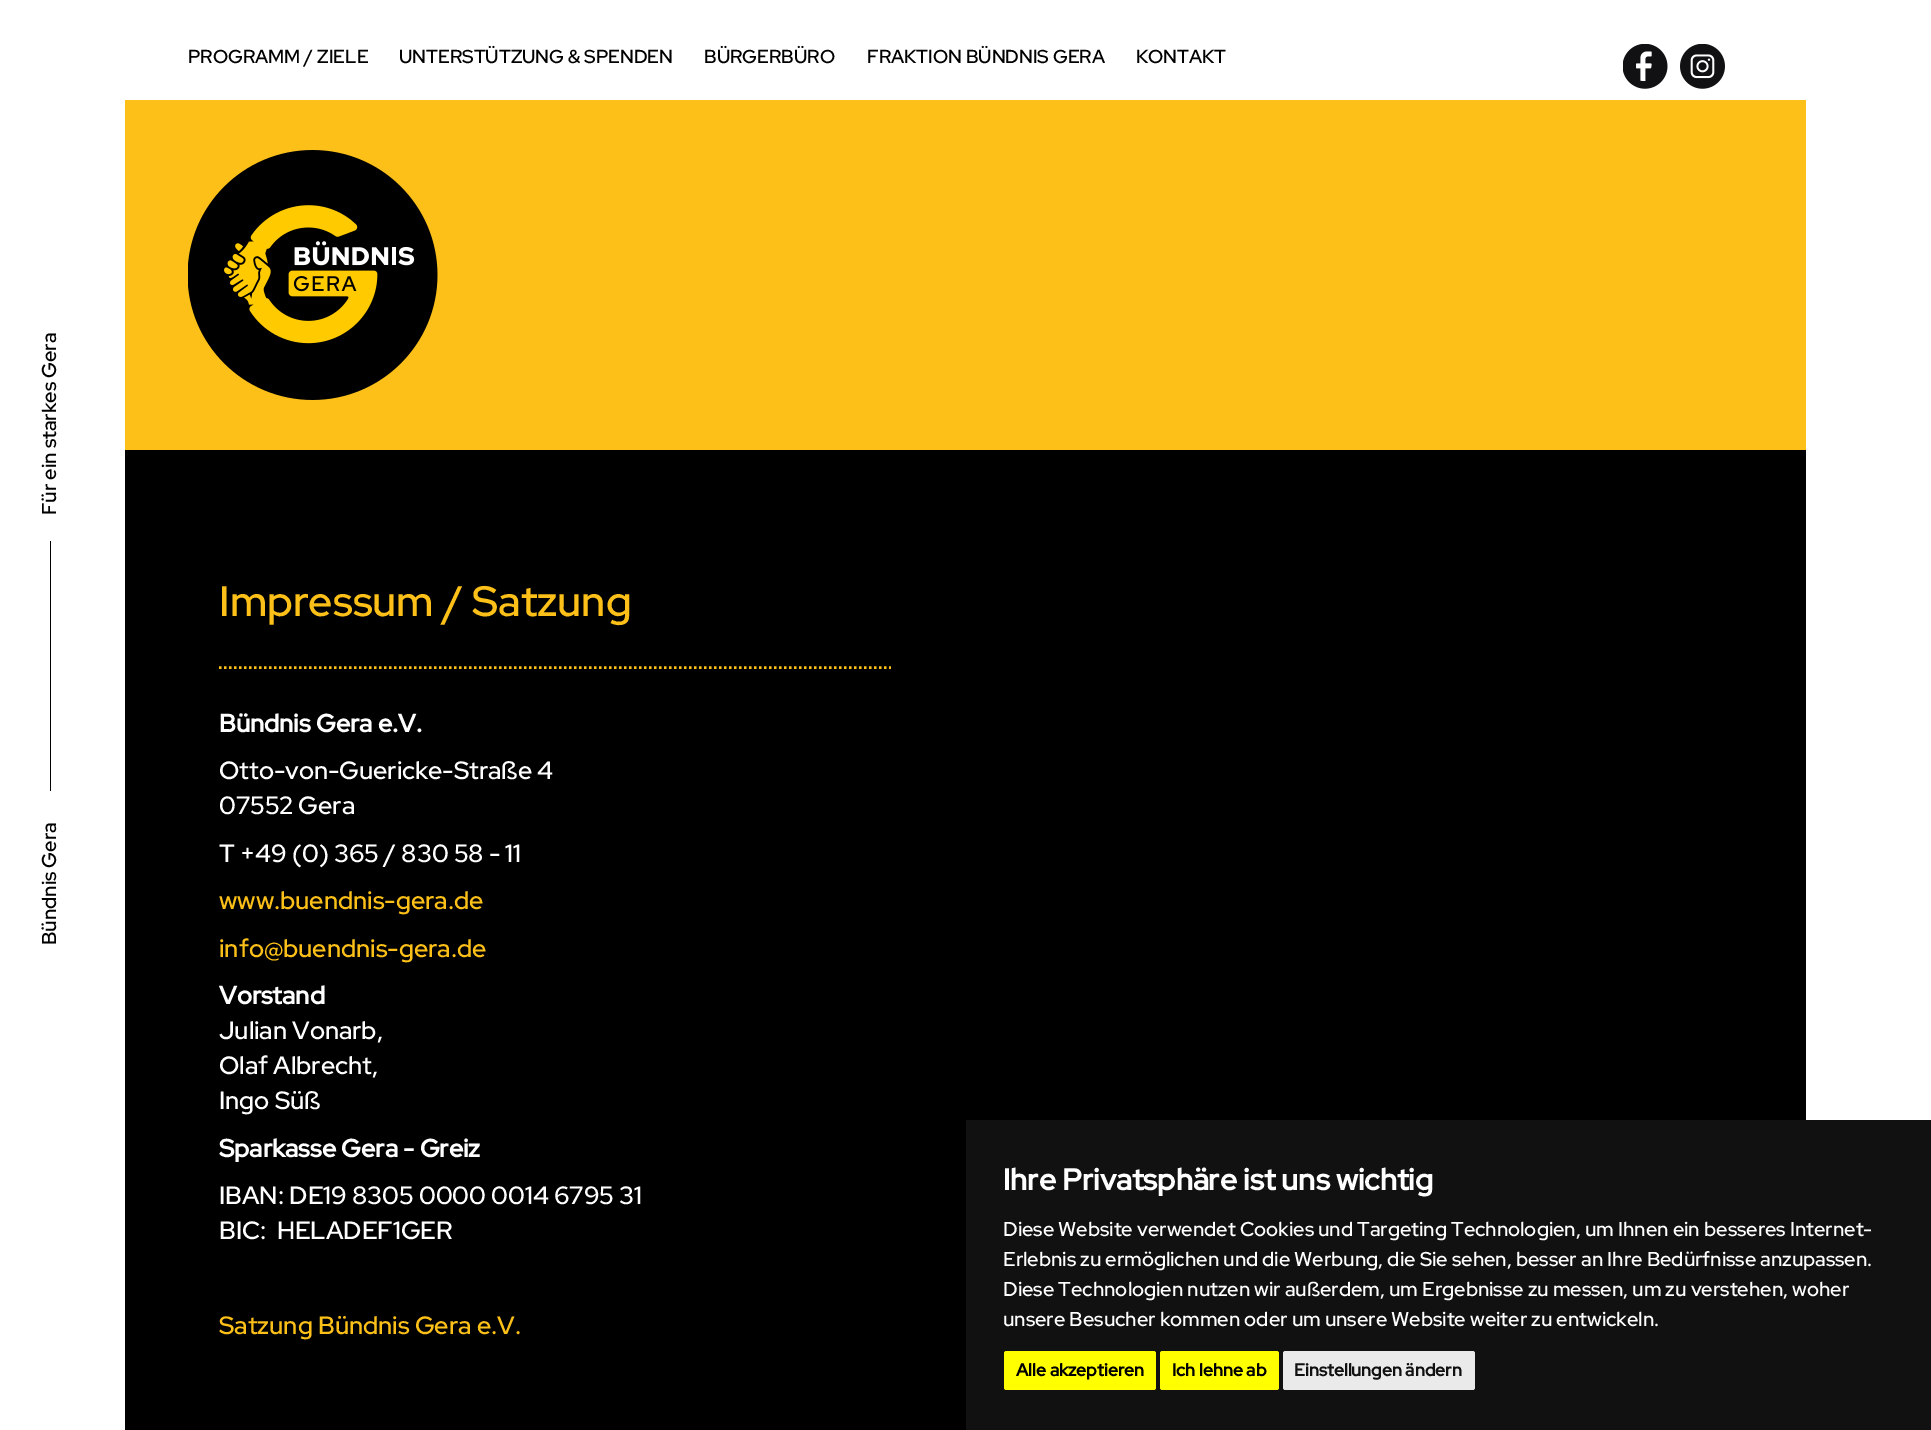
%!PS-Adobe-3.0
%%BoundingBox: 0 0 1931 1430
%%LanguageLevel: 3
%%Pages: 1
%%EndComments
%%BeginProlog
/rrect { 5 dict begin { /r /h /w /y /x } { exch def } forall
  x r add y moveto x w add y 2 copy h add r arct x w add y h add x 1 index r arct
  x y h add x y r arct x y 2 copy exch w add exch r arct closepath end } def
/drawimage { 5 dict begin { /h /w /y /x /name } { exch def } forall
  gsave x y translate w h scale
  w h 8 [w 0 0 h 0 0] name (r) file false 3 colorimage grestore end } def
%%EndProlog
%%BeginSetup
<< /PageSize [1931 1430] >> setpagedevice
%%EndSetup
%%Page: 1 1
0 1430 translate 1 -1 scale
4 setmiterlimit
1 setgray
0 0 1931 1430 rectfill
(images/1.raw) 1623 44 45 45 drawimage
(images/2.raw) 1680 44 45 45 drawimage
0.988 0.753 0.098 setrgbcolor
125 100 1681 350 rectfill
(images/3.raw) 188 150 250 250 drawimage
0 setgray
50 541 1 250 rectfill
125 450 1681 980 rectfill
0.988 0.753 0.098 setrgbcolor
2.5 setlinewidth
[2.5 2.5] 0 setdash
newpath 219 667.5 moveto 891 667.5 lineto stroke
0.067 setgray
966 1120 965 310 rectfill
1 1 0 setrgbcolor
1004 1351 152 39 2.5 rrect fill
1160 1351 119 39 2.5 rrect fill
0.918 setgray
1283 1351 192 39 2.5 rrect fill
/RedHatDisplay-Medium [18.75 0 0 -18.75 0 0] selectfont
0 setgray
188 63 moveto (PROGRAMM / ZIELE) show
399 63 moveto (UNTERSTÜTZUNG & SPENDEN) show
704 63 moveto (BÜRGERBÜRO) show
867 63 moveto (FRAKTION BÜNDNIS GERA) show
1136 63 moveto (KONTAKT) show
/RedHatDisplay-Medium [20 0 0 -20 0 0] selectfont
gsave 56 515 translate -90 rotate 0 0 moveto (Für ein starkes Gera) show grestore
gsave 56 945 translate -90 rotate 0 0 moveto (Bündnis Gera) show grestore
/RedHatDisplay-Medium [42.5 0 0 -42.5 0 0] selectfont
0.988 0.753 0.098 setrgbcolor
219 616 moveto (Impressum / Satzung) show
/RedHatDisplay-Bold [25 0 0 -25 0 0] selectfont
1 setgray
219 732 moveto (Bündnis Gera e.V.) show
/RedHatDisplay-Medium [25 0 0 -25 0 0] selectfont
219 779 moveto (Otto-von-Guericke-Straße 4) show
219 814 moveto (07552 Gera) show
219 862 moveto (T +49 \(0\) 365 / 830 58 - 11) show
0.988 0.753 0.098 setrgbcolor
219 909 moveto (www.buendnis-gera.de) show
219 957 moveto (info@buendnis-gera.de) show
/RedHatDisplay-Bold [25 0 0 -25 0 0] selectfont
1 setgray
219 1004 moveto (Vorstand) show
/RedHatDisplay-Medium [25 0 0 -25 0 0] selectfont
219 1039 moveto (Julian Vonarb,) show
219 1074 moveto (Olaf Albrecht,) show
219 1109 moveto (Ingo Süß) show
/RedHatDisplay-Bold [25 0 0 -25 0 0] selectfont
219 1157 moveto (Sparkasse Gera - Greiz) show
/RedHatDisplay-Medium [25 0 0 -25 0 0] selectfont
219 1204 moveto (IBAN: DE19 8305 0000 0014 6795 31) show
219 1239 moveto (BIC:  HELADEF1GER) show
0.988 0.753 0.098 setrgbcolor
219 1334 moveto (Satzung Bündnis Gera e.V.) show
/RedHatDisplay-Bold [30 0 0 -30 0 0] selectfont
1 setgray
1003 1190 moveto (Ihre Privatsphäre ist uns wichtig) show
/RedHatDisplay-Medium [20 0 0 -20 0 0] selectfont
1003 1236 moveto (Diese Website verwendet Cookies und Targeting Technologien, um Ihnen ein besseres Internet-) show
1003 1266 moveto (Erlebnis zu ermöglichen und die Werbung, die Sie sehen, besser an Ihre Bedürfnisse anzupassen.) show
1003 1296 moveto (Diese Technologien nutzen wir außerdem, um Ergebnisse zu messen, um zu verstehen, woher) show
1003 1326 moveto (unsere Besucher kommen oder um unsere Website weiter zu entwickeln.) show
/RedHatDisplay-Bold [17.5 0 0 -17.5 0 0] selectfont
0 setgray
1016 1376 moveto (Alle akzeptieren) show
1172 1376 moveto (Ich lehne ab) show
0.067 setgray
1294 1376 moveto (Einstellungen ändern) show
showpage
%%EOF
